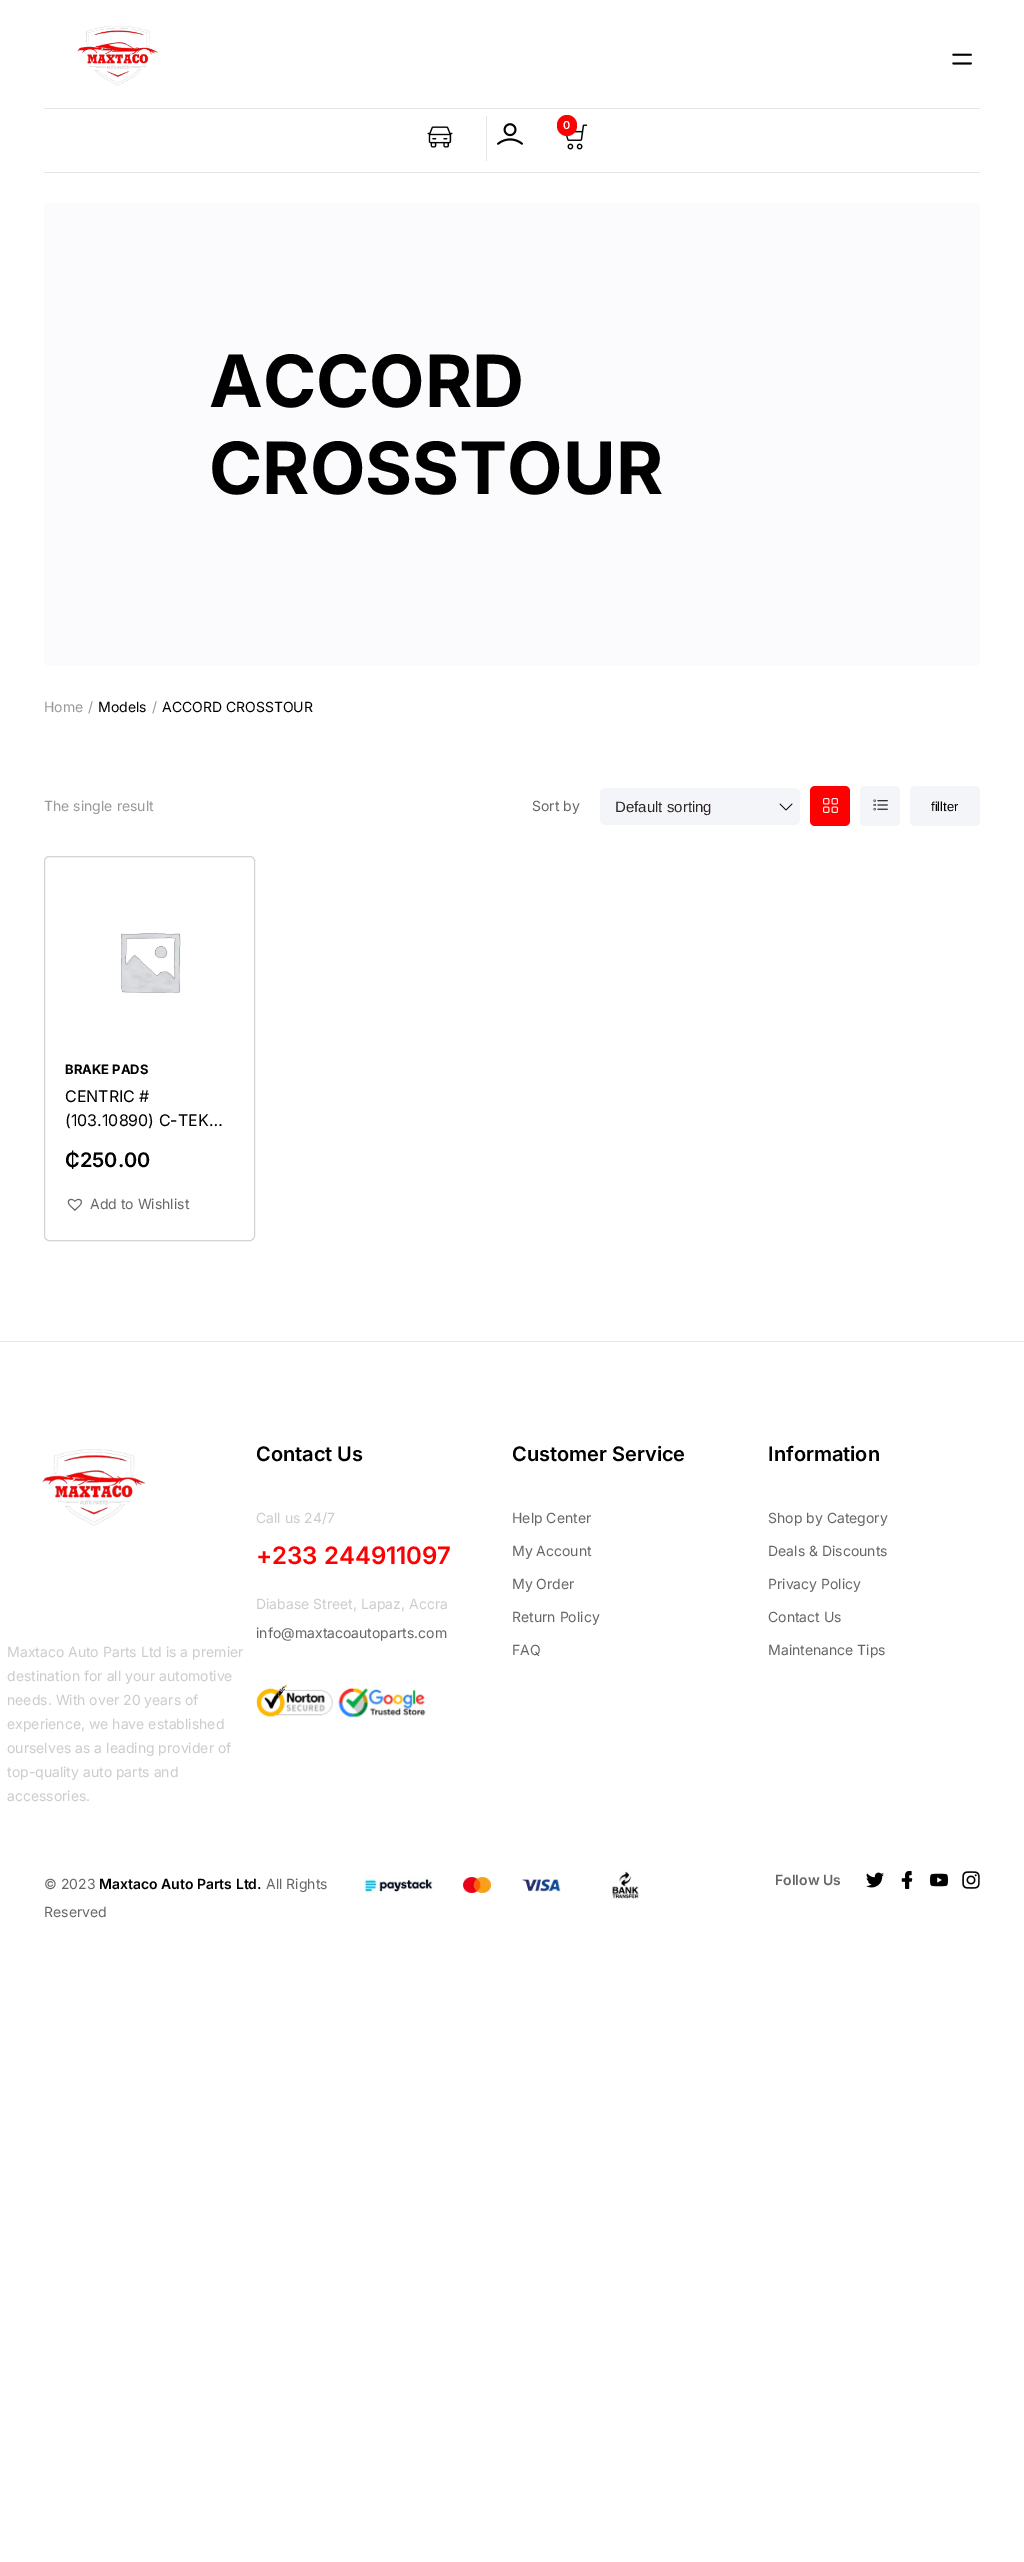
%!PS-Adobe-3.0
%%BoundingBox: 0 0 1024 2562
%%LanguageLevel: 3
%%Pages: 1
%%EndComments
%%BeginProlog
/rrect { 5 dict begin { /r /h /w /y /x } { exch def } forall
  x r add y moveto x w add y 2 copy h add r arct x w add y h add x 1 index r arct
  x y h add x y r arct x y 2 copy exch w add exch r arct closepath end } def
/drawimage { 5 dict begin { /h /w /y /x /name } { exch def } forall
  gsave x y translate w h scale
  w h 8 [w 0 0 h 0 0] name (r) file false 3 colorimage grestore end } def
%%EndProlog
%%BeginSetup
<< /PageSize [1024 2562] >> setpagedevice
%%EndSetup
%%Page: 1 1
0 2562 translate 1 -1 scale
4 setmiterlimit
1 setgray
0 0 1024 2562 rectfill
(images/1.raw) 77 26 81 60 drawimage
(images/2.raw) 952 53 20 12 drawimage
0.898 setgray
44 108 936 1 rectfill
(images/3.raw) 427 126 26 22 drawimage
486 116 1 45 rectfill
(images/4.raw) 497 123 26 22 drawimage
(images/5.raw) 565 124 23 26 drawimage
0.996 0 0.008 setrgbcolor
557 115 20 21 10 rrect fill
0.898 setgray
44 172 936 1 rectfill
0.984 0.984 0.992 setrgbcolor
44 203 936 463 5 rrect fill
0.957 0.961 0.976 setrgbcolor
600 788 200 37 5 rrect fill
(images/6.raw) 779 803 14 8 drawimage
0.996 0 0.008 setrgbcolor
810 786 40 40 5 rrect fill
(images/7.raw) 823 798 15 15 drawimage
0.957 0.961 0.976 setrgbcolor
860 786 40 40 5 rrect fill
(images/8.raw) 873 799 15 12 drawimage
910 786 70 40 5 rrect fill
0.831 setgray
44.5 856.5 210 384 4.5 rrect stroke
(images/9.raw) 121 933 60 60 drawimage
(images/10.raw) 67 1198 15 13 drawimage
0.898 setgray
0 1341 1024 1 rectfill
(images/11.raw) 256 1683 170 35 drawimage
(images/12.raw) 42 1449 104 77 drawimage
(images/13.raw) 364 1875 69 21 drawimage
(images/14.raw) 463 1877 28 16 drawimage
(images/15.raw) 522 1879 39 13 drawimage
(images/16.raw) 612 1871 27 28 drawimage
(images/17.raw) 866 1872 18 16 drawimage
(images/18.raw) 901 1871 12 18 drawimage
(images/19.raw) 930 1873 18 14 drawimage
(images/20.raw) 962 1871 18 18 drawimage
/Inter-SemiBold [11 0 0 -11 0 0] selectfont
1 setgray
563 129 moveto (0) show
/Inter-Bold [72 0 0 -72 0 0] selectfont
0 setgray
209 407 moveto (ACCORD) show
209 494 moveto (CROSSTOUR) show
/Inter-Regular [14 0 0 -14 0 0] selectfont
0.6 setgray
44 712 moveto (Home) show
88 712 moveto (/) show
0 setgray
98 712 moveto (Models) show
0.6 setgray
152 712 moveto (/) show
0 setgray
162 712 moveto (ACCORD CROSSTOUR) show
0.6 setgray
44 811 moveto (The single result) show
0.4 setgray
532 811 moveto (Sort by) show
/LiberationSans-Regular [15 0 0 -15 0 0] selectfont
0.176 0.153 0.153 setrgbcolor
615 812 moveto (Default sorting) show
/LiberationSans-Regular [13 0 0 -13 0 0] selectfont
0 setgray
931 811 moveto (fillter) show
/Inter-Bold [13 0 0 -13 0 0] selectfont
65 1074 moveto (BRAKE PADS) show
/Inter-Regular [16 0 0 -16 0 0] selectfont
65 1102 moveto (CENTRIC #) show
65 1126 moveto (\(103.10890\) C-TEK…) show
/Inter-SemiBold [20 0 0 -20 0 0] selectfont
65 1167 moveto (₵250.00) show
/Inter-Regular [14 0 0 -14 0 0] selectfont
0.4 setgray
90 1209 moveto (Add to Wishlist) show
/Inter-SemiBold [20 0 0 -20 0 0] selectfont
0 setgray
256 1461 moveto (Contact Us) show
/Inter-Regular [14 0 0 -14 0 0] selectfont
0.8 setgray
256 1523 moveto (Call us 24/7) show
/Inter-SemiBold [24 0 0 -24 0 0] selectfont
0.996 0 0.008 setrgbcolor
256 1564 moveto (+233 244911097) show
/Inter-Regular [14 0 0 -14 0 0] selectfont
0.8 setgray
256 1609 moveto (Diabase Street, Lapaz, Accra) show
0.4 setgray
256 1638 moveto (info@maxtacoautoparts.com) show
/Inter-SemiBold [20 0 0 -20 0 0] selectfont
0 setgray
512 1461 moveto (Customer Service) show
/Inter-Regular [14 0 0 -14 0 0] selectfont
0.4 setgray
512 1523 moveto (Help Center) show
512 1556 moveto (My Account) show
512 1589 moveto (My Order) show
512 1622 moveto (Return Policy) show
512 1655 moveto (FAQ) show
/Inter-SemiBold [20 0 0 -20 0 0] selectfont
0 setgray
768 1461 moveto (Information) show
/Inter-Regular [14 0 0 -14 0 0] selectfont
0.4 setgray
768 1523 moveto (Shop by Category) show
768 1556 moveto (Deals & Discounts) show
768 1589 moveto (Privacy Policy) show
768 1622 moveto (Contact Us) show
768 1655 moveto (Maintenance Tips) show
0.8 setgray
7 1657 moveto (Maxtaco Auto Parts Ltd is a premier) show
7 1681 moveto (destination for all your automotive) show
7 1705 moveto (needs. With over 20 years of) show
7 1729 moveto (experience, we have established) show
7 1753 moveto (ourselves as a leading provider of) show
7 1777 moveto (top-quality auto parts and) show
7 1801 moveto (accessories.) show
0.4 setgray
44 1889 moveto (© 2023) show
/Inter-SemiBold [14 0 0 -14 0 0] selectfont
0 setgray
99 1889 moveto (Maxtaco Auto Parts Ltd.) show
/Inter-Regular [14 0 0 -14 0 0] selectfont
0.4 setgray
266 1889 moveto (All Rights) show
44 1917 moveto (Reserved) show
/Inter-SemiBold [14 0 0 -14 0 0] selectfont
775 1885 moveto (Follow Us) show
showpage
%%EOF
